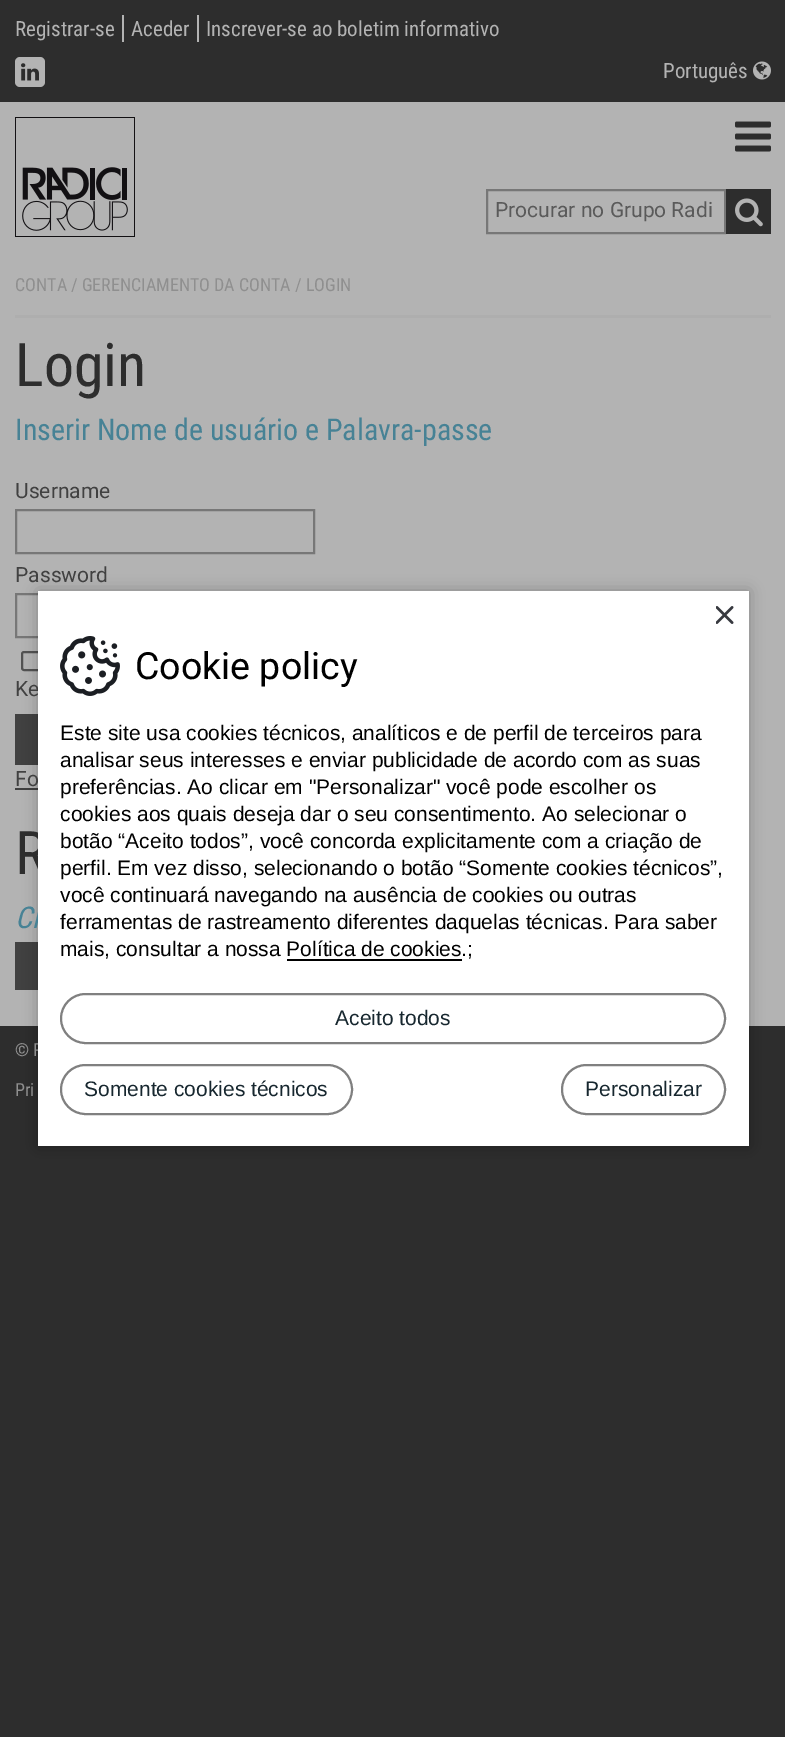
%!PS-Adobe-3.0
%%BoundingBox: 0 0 785 1737
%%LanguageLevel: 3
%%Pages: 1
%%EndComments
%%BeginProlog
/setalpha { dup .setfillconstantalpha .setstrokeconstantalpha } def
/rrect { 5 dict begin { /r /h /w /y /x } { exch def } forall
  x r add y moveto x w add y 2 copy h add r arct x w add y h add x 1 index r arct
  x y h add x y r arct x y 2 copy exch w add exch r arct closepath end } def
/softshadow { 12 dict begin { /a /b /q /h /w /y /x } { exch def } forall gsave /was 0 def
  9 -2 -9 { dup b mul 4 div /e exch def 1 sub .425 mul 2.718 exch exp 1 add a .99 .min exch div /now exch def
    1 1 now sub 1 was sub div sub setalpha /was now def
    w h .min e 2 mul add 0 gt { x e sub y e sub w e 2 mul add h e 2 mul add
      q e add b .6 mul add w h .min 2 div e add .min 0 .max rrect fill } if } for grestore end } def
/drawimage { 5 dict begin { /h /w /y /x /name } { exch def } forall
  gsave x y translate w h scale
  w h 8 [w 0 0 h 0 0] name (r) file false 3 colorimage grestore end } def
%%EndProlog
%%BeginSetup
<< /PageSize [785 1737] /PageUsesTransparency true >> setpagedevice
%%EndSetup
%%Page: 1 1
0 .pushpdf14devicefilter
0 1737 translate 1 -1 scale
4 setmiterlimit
0.176 setgray
0 0 785 1737 rectfill
0.702 setgray
122 15 2 27 rectfill
197 15 2 27 rectfill
15 57 30 30 5 rrect fill
(images/1.raw) 21 63 18 18 drawimage
(images/2.raw) 753 61 18 19 drawimage
0 102 785 924 rectfill
(images/3.raw) 15 117 120 120 drawimage
(images/4.raw) 22 167 106 64 drawimage
(images/5.raw) 735 121 36 31 drawimage
0.467 setgray
2 setlinewidth
487 190 238 43 rectstroke
0.176 setgray
726 189 45 45 rectfill
(images/6.raw) 735 198 28 29 drawimage
0.682 setgray
15 315 756 3 rectfill
0.467 setgray
16 510 298 43 rectstroke
16 594 298 43 rectstroke
0.325 setgray
22 652 18 18 2 rrect stroke
0.255 setgray
15 714 23 51 rectfill
15 788 23 2 rectfill
15 942 23 48 rectfill
0 setgray
38 591 711 555 0 7.5 0.25 softshadow
/RobotoCondensed-Regular [21 0 0 -21 0 0] selectfont
0.702 setgray
15 36 moveto (Registrar-se) show
131 36 moveto (Aceder) show
206 36 moveto (Inscrever-se ao boletim informativo) show
663 78 moveto (Português) show
/Roboto-Regular [21 0 0 -21 0 0] selectfont
0.353 setgray
495 217 moveto (Procurar no Grupo Radi) show
/RobotoCondensed-Regular [18 0 0 -18 0 0] selectfont
0.561 setgray
15 291 moveto (CONTA / GERENCIAMENTO DA CONTA / LOGIN) show
/RobotoCondensed-Regular [60 0 0 -60 0 0] selectfont
0.176 setgray
15 386 moveto (Login) show
/RobotoCondensed-Regular [30 0 0 -30 0 0] selectfont
0.278 0.51 0.584 setrgbcolor
15 440 moveto (Inserir Nome de usuário e Palavra-passe) show
/Roboto-Regular [21 0 0 -21 0 0] selectfont
0.255 setgray
15 498 moveto (Username) show
15 582 moveto (Password) show
15 696 moveto (Ke) show
15 786 moveto (Fo) show
/RobotoCondensed-Regular [60 0 0 -60 0 0] selectfont
0.176 setgray
15 874 moveto (R) show
/RobotoCondensed-Italic [30 0 0 -30 0 0] selectfont
0.278 0.51 0.584 setrgbcolor
15 928 moveto (Cr) show
/RobotoCondensed-Regular [18 0 0 -18 0 0] selectfont
0.561 setgray
15 1056 moveto (© R) show
15 1096 moveto (Pri) show
1 setgray
38 591 711 555 rectfill
(images/7.raw) 716 606 18 18 drawimage
(images/8.raw) 60 636 60 60 drawimage
/Roboto-Regular [37.5 0 0 -37.5 0 0] selectfont
0 setgray
135 679 moveto (Cookie policy) show
/LiberationSans-Regular [21 0 0 -21 0 0] selectfont
60 740 moveto (Este site usa cookies técnicos, analíticos e de perfil de terceiros para) show
60 767 moveto (analisar seus interesses e enviar publicidade de acordo com as suas) show
60 794 moveto (preferências. Ao clicar em "Personalizar" você pode escolher os) show
60 821 moveto (cookies aos quais deseja dar o seu consentimento. Ao selecionar o) show
60 848 moveto (botão “Aceito todos”, você concorda explicitamente com a criação de) show
60 875 moveto (perfil. Em vez disso, selecionando o botão “Somente cookies técnicos”,) show
60 902 moveto (você continuará navegando na ausência de cookies ou outras) show
60 929 moveto (ferramentas de rastreamento diferentes daquelas técnicas. Para saber) show
60 956 moveto (mais, consultar a nossa Política de cookies.;) show
287 959 175 2 rectfill
0.502 setgray
61 994 664 49 24.5 rrect stroke
0.09 0.153 0.184 setrgbcolor
335 1025 moveto (Aceito todos) show
0.502 setgray
61 1065 291 49 24.5 rrect stroke
0.09 0.153 0.184 setrgbcolor
84 1096 moveto (Somente cookies técnicos) show
0.502 setgray
562 1065 163 49 24.5 rrect stroke
0.09 0.153 0.184 setrgbcolor
585 1096 moveto (Personalizar) show
.poppdf14devicefilter showpage
%%EOF
